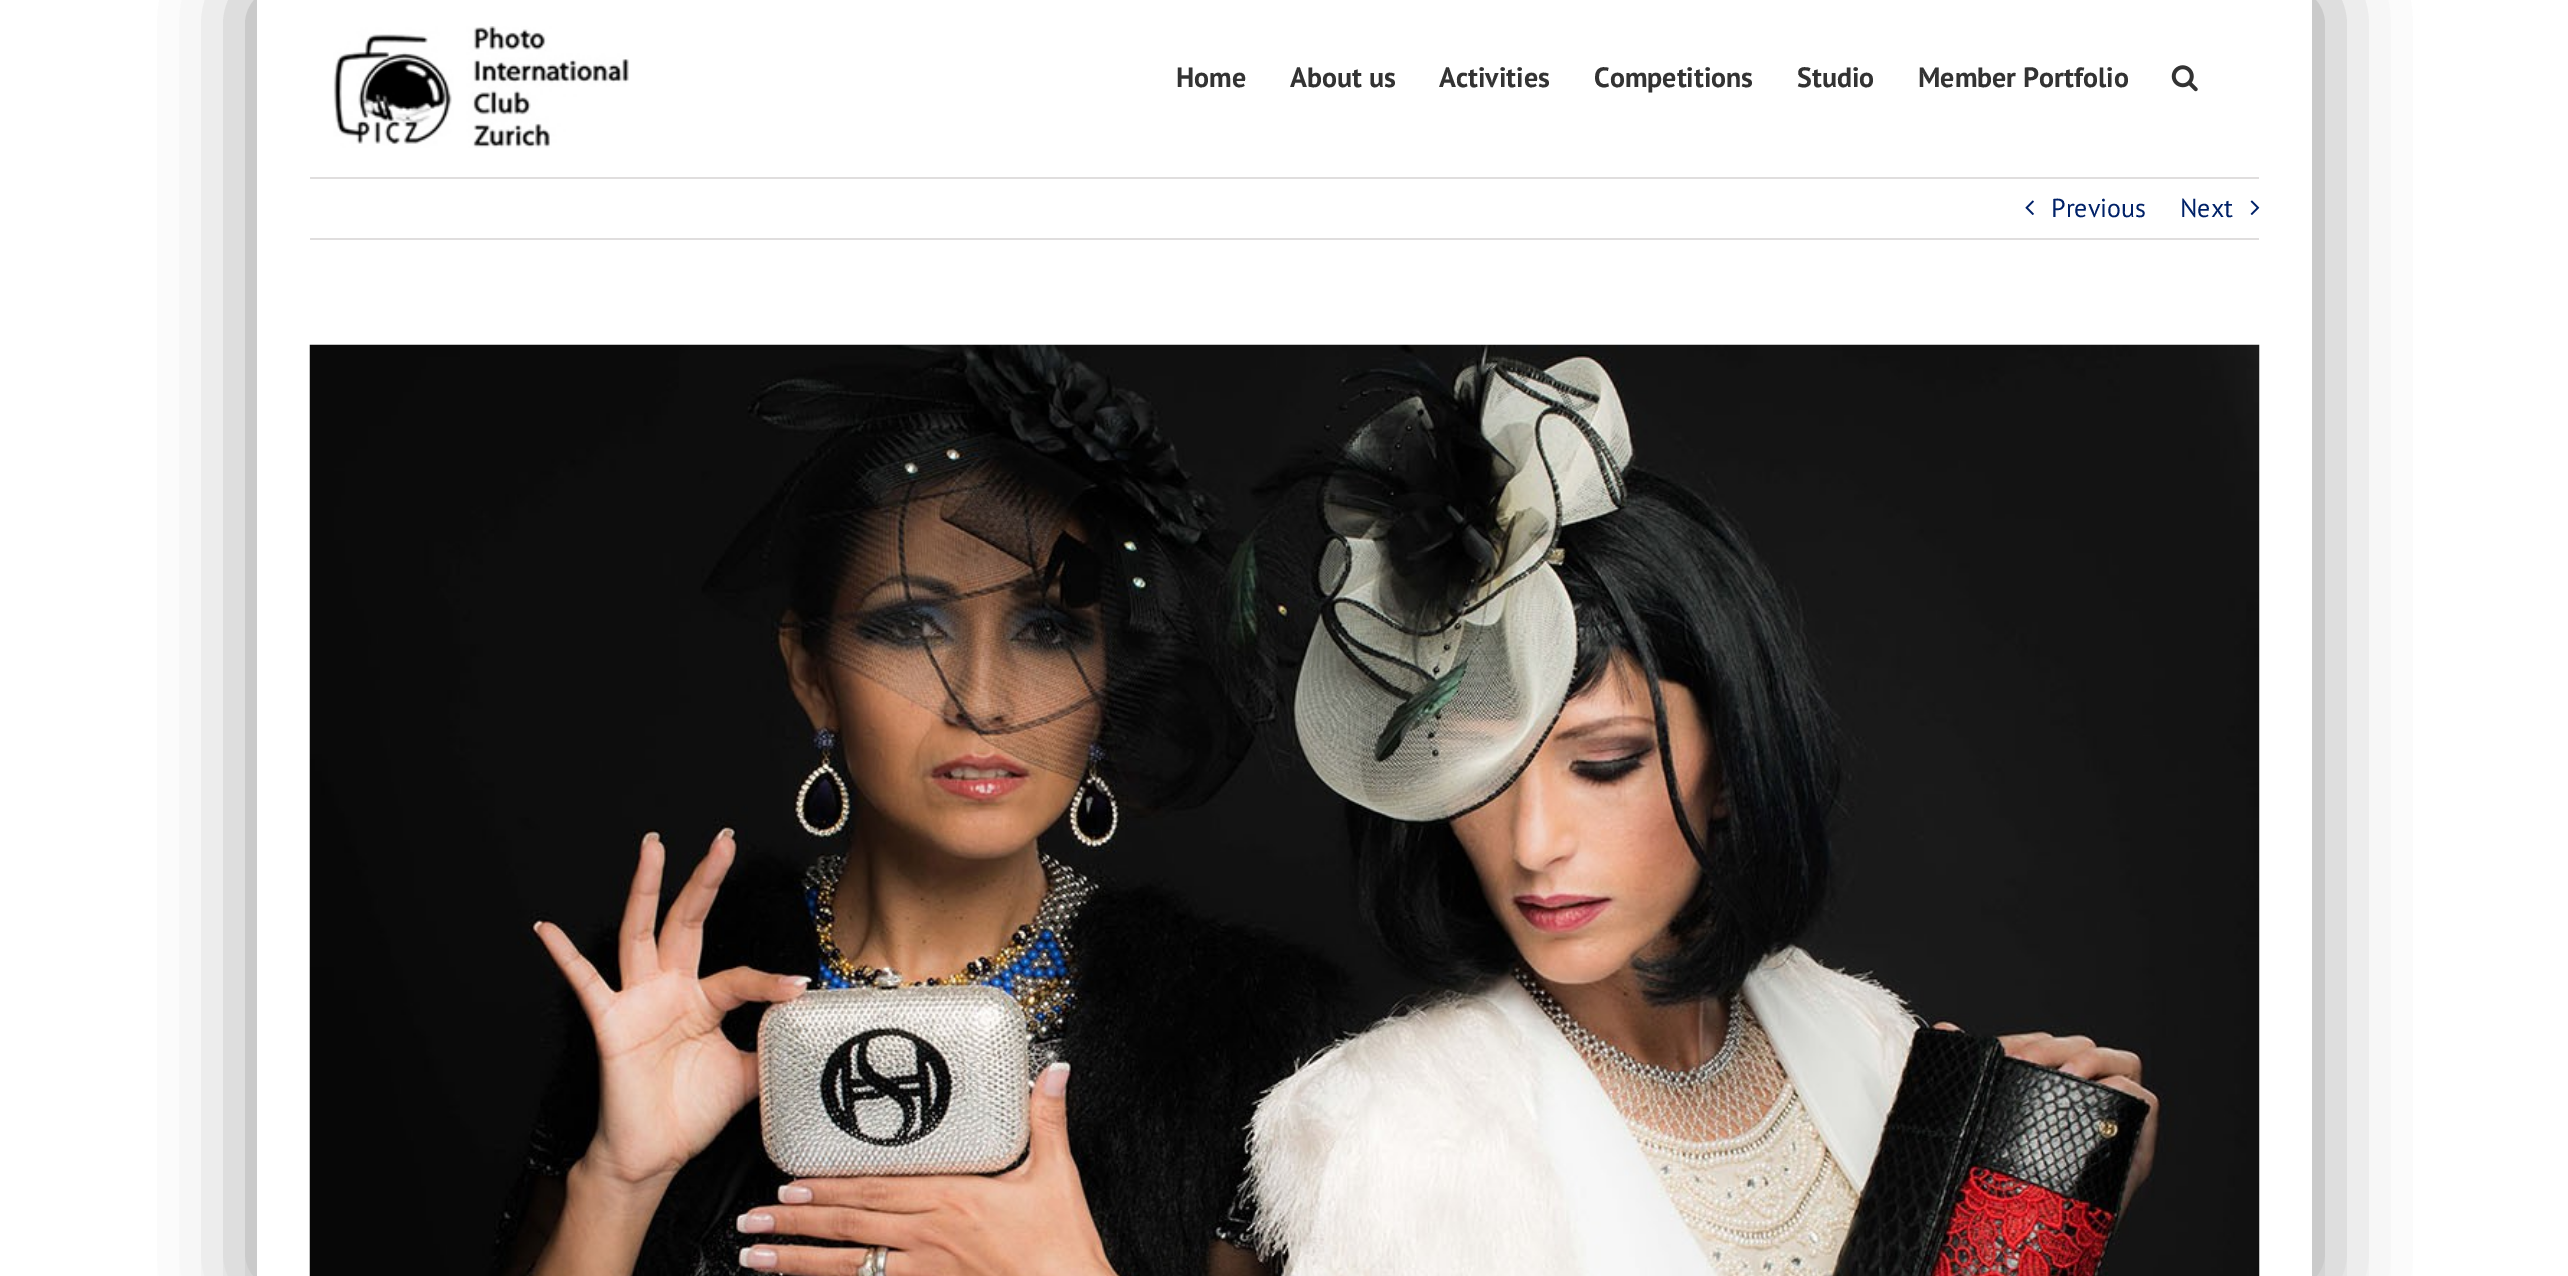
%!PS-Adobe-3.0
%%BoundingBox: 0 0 2568 1276
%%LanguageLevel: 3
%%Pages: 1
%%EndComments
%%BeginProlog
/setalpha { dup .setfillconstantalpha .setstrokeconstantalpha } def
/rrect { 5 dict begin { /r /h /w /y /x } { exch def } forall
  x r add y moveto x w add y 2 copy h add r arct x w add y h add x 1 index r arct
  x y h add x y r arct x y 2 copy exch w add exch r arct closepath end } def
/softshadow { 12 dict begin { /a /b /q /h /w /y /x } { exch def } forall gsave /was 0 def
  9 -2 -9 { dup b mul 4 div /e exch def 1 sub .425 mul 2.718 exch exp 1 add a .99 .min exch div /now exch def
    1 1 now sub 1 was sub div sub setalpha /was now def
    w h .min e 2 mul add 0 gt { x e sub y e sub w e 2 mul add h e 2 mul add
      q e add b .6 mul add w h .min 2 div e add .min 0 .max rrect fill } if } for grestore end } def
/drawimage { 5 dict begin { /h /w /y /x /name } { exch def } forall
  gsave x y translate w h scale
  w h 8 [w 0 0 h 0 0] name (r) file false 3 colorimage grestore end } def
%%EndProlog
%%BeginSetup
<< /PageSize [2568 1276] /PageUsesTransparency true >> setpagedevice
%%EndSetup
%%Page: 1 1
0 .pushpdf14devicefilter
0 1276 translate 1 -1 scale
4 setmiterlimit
1 setgray
0 0 2568 1276 rectfill
0 setgray
256 -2 2058 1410 0 44 0.22 softshadow
1 setgray
257 0 2055 1276 rectfill
(images/1.raw) 333 26 296 122 drawimage
(images/2.raw) 2171 65 27 27 drawimage
0.878 0.871 0.871 setrgbcolor
310 177 1949 2 rectfill
310 238 1949 2 rectfill
(images/3.raw) 2025 200 9 15 drawimage
(images/4.raw) 2250 200 10 15 drawimage
(images/5.raw) 309 344 1951 932 drawimage
gsave
newpath 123 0 moveto 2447 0 lineto 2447 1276 lineto 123 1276 lineto closepath 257 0 moveto 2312 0 lineto 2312 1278 lineto 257 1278 lineto closepath eoclip newpath
0 setgray
256 -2 2058 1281 0 44 0.22 softshadow
grestore
/PTSans-Bold [28 0 0 -28 0 0] selectfont
0.2 setgray
1176 87 moveto (Home) show
1290 87 moveto (About us) show
1439 87 moveto (Activities) show
1594 87 moveto (Competitions) show
1797 87 moveto (Studio) show
1918 87 moveto (Member Portfolio) show
/PTSans-Regular [26 0 0 -26 0 0] selectfont
0 0.129 0.408 setrgbcolor
2051 217 moveto (Previous) show
2180 217 moveto (Next) show
.poppdf14devicefilter showpage
%%EOF
